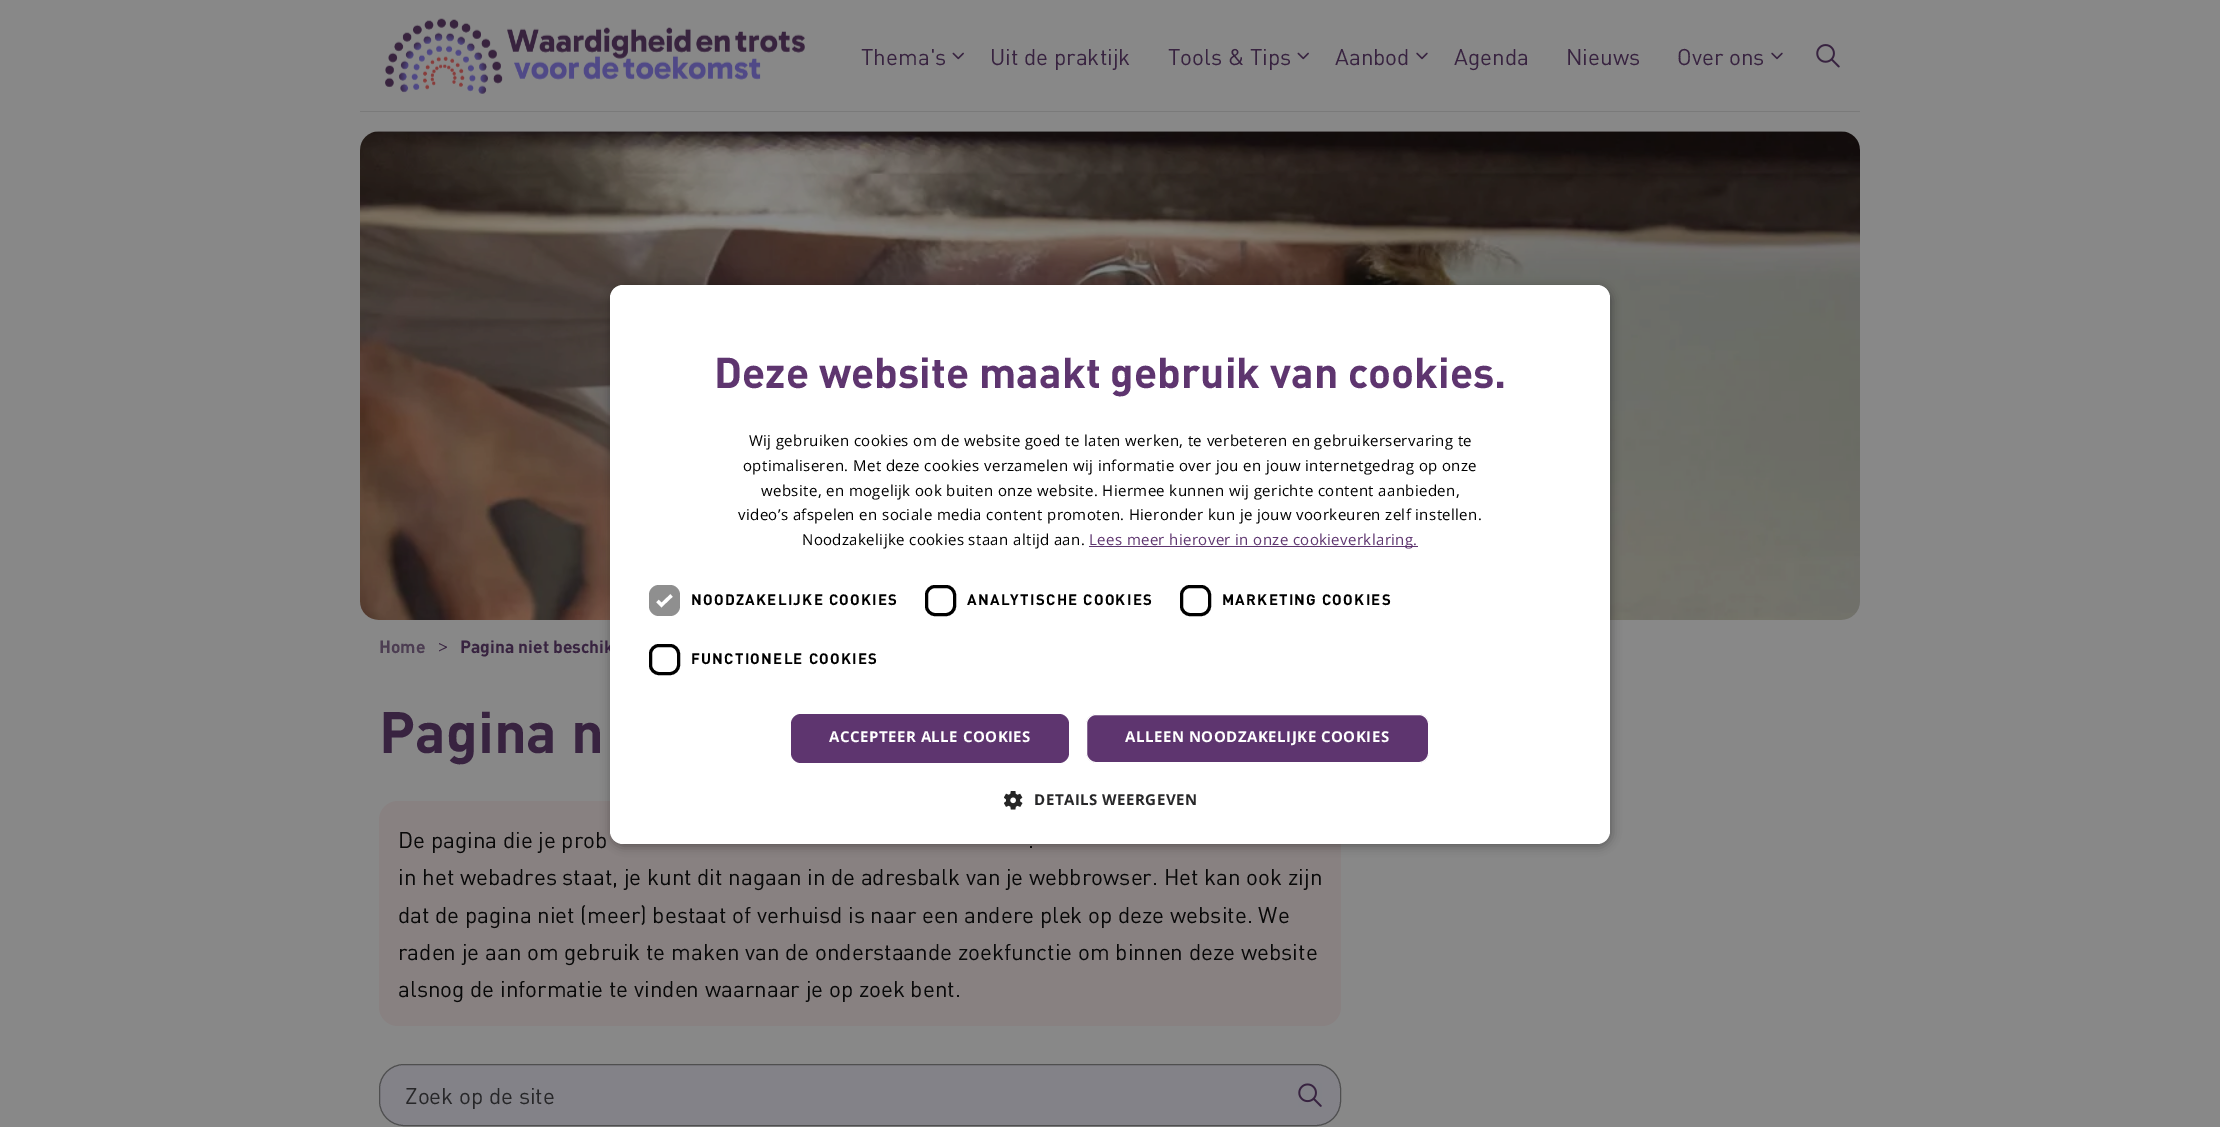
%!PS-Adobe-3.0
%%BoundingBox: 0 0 2220 1127
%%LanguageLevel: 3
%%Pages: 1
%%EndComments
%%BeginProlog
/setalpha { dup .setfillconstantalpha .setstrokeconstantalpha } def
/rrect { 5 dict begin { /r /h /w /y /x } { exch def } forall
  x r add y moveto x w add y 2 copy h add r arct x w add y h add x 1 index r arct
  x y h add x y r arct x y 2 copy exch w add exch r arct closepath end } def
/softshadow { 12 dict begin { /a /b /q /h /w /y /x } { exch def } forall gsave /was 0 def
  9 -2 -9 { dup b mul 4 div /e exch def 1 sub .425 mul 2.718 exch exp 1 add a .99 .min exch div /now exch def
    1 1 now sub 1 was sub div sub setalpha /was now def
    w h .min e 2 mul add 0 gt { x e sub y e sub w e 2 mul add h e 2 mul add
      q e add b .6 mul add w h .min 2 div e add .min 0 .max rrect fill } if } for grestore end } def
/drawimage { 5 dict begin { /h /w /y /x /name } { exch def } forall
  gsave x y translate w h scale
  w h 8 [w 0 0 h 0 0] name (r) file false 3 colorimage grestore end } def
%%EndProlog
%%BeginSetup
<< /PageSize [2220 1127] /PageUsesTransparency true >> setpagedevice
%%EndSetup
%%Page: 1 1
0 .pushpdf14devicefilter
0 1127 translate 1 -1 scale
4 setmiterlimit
0.533 setgray
0 0 2220 1127 rectfill
0.478 setgray
360 111 1500 1 rectfill
(images/1.raw) 385 18 420 76 drawimage
(images/2.raw) 952 52 12 8 drawimage
(images/2.raw) 1297 52 12 8 drawimage
(images/3.raw) 1416 52 12 8 drawimage
(images/3.raw) 1771 52 12 8 drawimage
(images/4.raw) 1816 44 24 24 drawimage
(images/5.raw) 360 131 1500 489 drawimage
0.533 0.506 0.506 setrgbcolor
379 801 962 225 19 rrect fill
0.514 0.51 0.533 setrgbcolor
380 1065 960 60 24 rrect fill
0.45 setalpha
0.035 setgray
379.5 1064.5 961 61 24.5 rrect stroke
1 setalpha
(images/6.raw) 1298 1083 24 24 drawimage
0 setgray
611 288 1000 558 13 5 0.35 softshadow
/DIN-Regular [22.5 0 0 -22.5 0 0] selectfont
0.22 0.137 0.251 setrgbcolor
861 65 moveto (Thema's) show
990 65 moveto (Uit de praktijk) show
1168 65 moveto (Tools & Tips) show
1335 65 moveto (Aanbod) show
1454 65 moveto (Agenda) show
1566 65 moveto (Nieuws) show
1677 65 moveto (Over ons) show
/DIN-Bold [17.5 0 0 -17.5 0 0] selectfont
0.298 0.239 0.322 setrgbcolor
379 653 moveto (Home) show
/LiberationSerif-Bold [17.5 0 0 -17.5 0 0] selectfont
0.22 0.137 0.251 setrgbcolor
438 653 moveto (>) show
/DIN-Bold [17.5 0 0 -17.5 0 0] selectfont
460 653 moveto (Pagina niet beschik) show
/DIN-Bold [57.5 0 0 -57.5 0 0] selectfont
379 753 moveto (Pagina n) show
/DIN-Regular [22.5 0 0 -22.5 0 0] selectfont
0.035 setgray
398 848 moveto (De pagina die je prob) show
1028 848 moveto (.) show
398 885 moveto (in het webadres staat, je kunt dit nagaan in de adresbalk van je webbrowser. Het kan ook zijn) show
398 923 moveto (dat de pagina niet \(meer\) bestaat of verhuisd is naar een andere plek op deze website. We) show
398 960 moveto (raden je aan om gebruik te maken van de onderstaande zoekfunctie om binnen deze website) show
398 997 moveto (alsnog de informatie te vinden waarnaar je op zoek bent.) show
0.153 0.153 0.161 setrgbcolor
405 1104 moveto (Zoek op de site) show
1 setgray
610 285 1000 559 13 rrect fill
/DIN-Bold [42.5 0 0 -42.5 0 0] selectfont
0.369 0.208 0.435 setrgbcolor
714 388 moveto (Deze website maakt gebruik van cookies.) show
/OpenSans-Regular [15 0 0 -15 0 0] selectfont
0 setgray
749 446 moveto 0.38 0 (Wij gebruiken cookies om de website goed te laten werken, te verbeteren en gebruikerservaring te) ashow
743 471 moveto 0.38 0 (optimaliseren. Met deze cookies verzamelen wij informatie over jou en jouw internetgedrag op onze) ashow
761 496 moveto 0.38 0 (website, en mogelijk ook buiten onze website. Hiermee kunnen wij gerichte content aanbieden,) ashow
738 520 moveto 0.38 0 (video’s afspelen en sociale media content promoten. Hieronder kun je jouw voorkeuren zelf instellen.) ashow
802 545 moveto 0.38 0 (Noodzakelijke cookies staan altijd aan.) ashow
0.369 0.208 0.435 setrgbcolor
1089 546 329 1 rectfill
1089 545 moveto 0.38 0 (Lees meer hierover in onze cookieverklaring.) ashow
0.561 setgray
649 585 31 31 10 rrect fill
1 setgray
3.3 setlinewidth
newpath 657.5 601 moveto 661.5 605 lineto 671.5 595.5 lineto stroke
/DIN-Bold [15 0 0 -15 0 0] selectfont
0 setgray
691 605 moveto 1.25 0 (NOODZAKELIJKE COOKIES) ashow
3 setlinewidth
926.5 586.5 28 28 8.5 rrect stroke
967 605 moveto 1.25 0 (ANALYTISCHE COOKIES) ashow
1181.5 586.5 28 28 8.5 rrect stroke
1222 605 moveto 1.25 0 (MARKETING COOKIES) ashow
650.5 645.5 28 28 8.5 rrect stroke
691 664 moveto 1.25 0 (FUNCTIONELE COOKIES) ashow
0.369 0.208 0.435 setrgbcolor
791 714 278 49 10 rrect fill
/OpenSans-Bold [15 0 0 -15 0 0] selectfont
1 setgray
829 742 moveto 0.5 0 (ACCEPTEER ALLE COOKIES) ashow
0.369 0.208 0.435 setrgbcolor
1086.5 714.5 342 48 9.5 rrect gsave fill grestore
1 setgray
1 setlinewidth
stroke
1125 742 moveto 0.5 0 (ALLEEN NOODZAKELIJKE COOKIES) ashow
(images/7.raw) 1004 791 19 19 drawimage
0.153 0.153 0.161 setrgbcolor
1034 805 moveto 0.5 0 (DETAILS WEERGEVEN) ashow
.poppdf14devicefilter showpage
%%EOF
